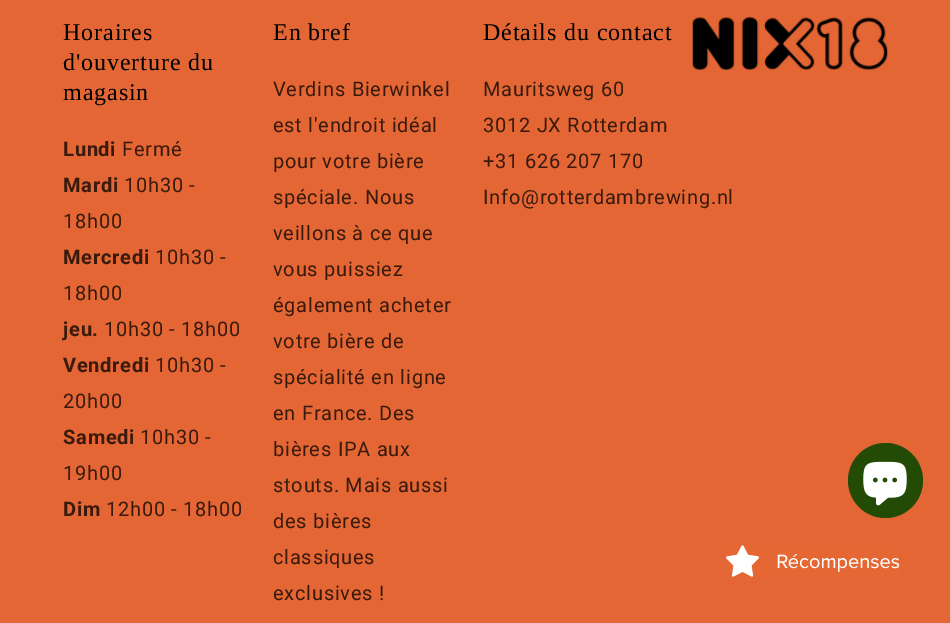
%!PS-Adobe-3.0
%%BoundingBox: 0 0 950 623
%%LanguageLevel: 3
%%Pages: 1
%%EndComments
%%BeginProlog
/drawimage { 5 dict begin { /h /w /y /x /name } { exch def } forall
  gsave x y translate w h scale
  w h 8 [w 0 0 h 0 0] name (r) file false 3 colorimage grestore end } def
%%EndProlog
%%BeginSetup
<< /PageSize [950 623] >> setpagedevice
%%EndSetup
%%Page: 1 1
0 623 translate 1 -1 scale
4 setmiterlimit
0.89 0.4 0.204 setrgbcolor
0 0 950 623 rectfill
(images/1.raw) 692 17 196 53 drawimage
0.141 0.294 0.024 setrgbcolor
newpath 885.5 480.5 37.5 0 360 arc closepath fill
(images/2.raw) 863 461 44 45 drawimage
(images/3.raw) 726 545 174 32 drawimage
/LiberationSerif-Regular [24 0 0 -24 0 0] selectfont
0 setgray
63 40 moveto 0.9 0 (Horaires) ashow
63 70 moveto 0.9 0 (d'ouverture du) ashow
63 100 moveto 0.9 0 (magasin) ashow
/Roboto-Bold [20 0 0 -20 0 0] selectfont
0.224 0.102 0.051 setrgbcolor
63 156 moveto 0.75 0 (Lundi) ashow
/Roboto-Regular [20 0 0 -20 0 0] selectfont
122 156 moveto 0.75 0 (Fermé) ashow
/Roboto-Bold [20 0 0 -20 0 0] selectfont
63 192 moveto 0.75 0 (Mardi) ashow
/Roboto-Regular [20 0 0 -20 0 0] selectfont
124 192 moveto 0.75 0 (10h30 -) ashow
63 228 moveto 0.75 0 (18h00) ashow
/Roboto-Bold [20 0 0 -20 0 0] selectfont
63 264 moveto 0.75 0 (Mercredi) ashow
/Roboto-Regular [20 0 0 -20 0 0] selectfont
155 264 moveto 0.75 0 (10h30 -) ashow
63 300 moveto 0.75 0 (18h00) ashow
/Roboto-Bold [20 0 0 -20 0 0] selectfont
63 336 moveto 0.75 0 (jeu.) ashow
/Roboto-Regular [20 0 0 -20 0 0] selectfont
104 336 moveto 0.75 0 (10h30 - 18h00) ashow
/Roboto-Bold [20 0 0 -20 0 0] selectfont
63 372 moveto 0.75 0 (Vendredi) ashow
/Roboto-Regular [20 0 0 -20 0 0] selectfont
155 372 moveto 0.75 0 (10h30 -) ashow
63 408 moveto 0.75 0 (20h00) ashow
/Roboto-Bold [20 0 0 -20 0 0] selectfont
63 444 moveto 0.75 0 (Samedi) ashow
/Roboto-Regular [20 0 0 -20 0 0] selectfont
140 444 moveto 0.75 0 (10h30 -) ashow
63 480 moveto 0.75 0 (19h00) ashow
/Roboto-Bold [20 0 0 -20 0 0] selectfont
63 516 moveto 0.75 0 (Dim) ashow
/Roboto-Regular [20 0 0 -20 0 0] selectfont
106 516 moveto 0.75 0 (12h00 - 18h00) ashow
/LiberationSerif-Regular [24 0 0 -24 0 0] selectfont
0 setgray
273 40 moveto 0.9 0 (En bref) ashow
/Roboto-Regular [20 0 0 -20 0 0] selectfont
0.224 0.102 0.051 setrgbcolor
273 96 moveto 0.75 0 (Verdins Bierwinkel) ashow
273 132 moveto 0.75 0 (est l'endroit idéal) ashow
273 168 moveto 0.75 0 (pour votre bière) ashow
273 204 moveto 0.75 0 (spéciale. Nous) ashow
273 240 moveto 0.75 0 (veillons à ce que) ashow
273 276 moveto 0.75 0 (vous puissiez) ashow
273 312 moveto 0.75 0 (également acheter) ashow
273 348 moveto 0.75 0 (votre bière de) ashow
273 384 moveto 0.75 0 (spécialité en ligne) ashow
273 420 moveto 0.75 0 (en France. Des) ashow
273 456 moveto 0.75 0 (bières IPA aux) ashow
273 492 moveto 0.75 0 (stouts. Mais aussi) ashow
273 528 moveto 0.75 0 (des bières) ashow
273 564 moveto 0.75 0 (classiques) ashow
273 600 moveto 0.75 0 (exclusives !) ashow
/LiberationSerif-Regular [24 0 0 -24 0 0] selectfont
0 setgray
483 40 moveto 0.9 0 (Détails du contact) ashow
/Roboto-Regular [20 0 0 -20 0 0] selectfont
0.224 0.102 0.051 setrgbcolor
483 96 moveto 0.75 0 (Mauritsweg 60) ashow
483 132 moveto 0.75 0 (3012 JX Rotterdam) ashow
483 168 moveto 0.75 0 (+31 626 207 170) ashow
483 204 moveto 0.75 0 (Info@rotterdambrewing.nl) ashow
showpage
%%EOF
